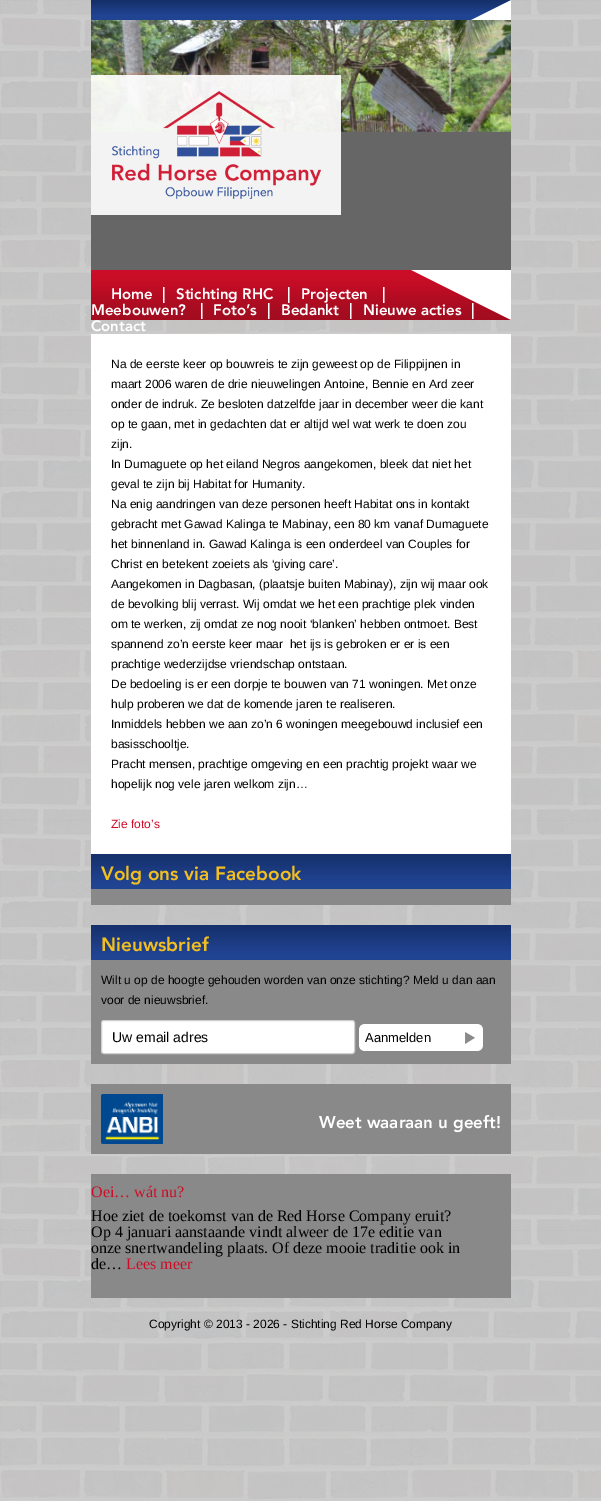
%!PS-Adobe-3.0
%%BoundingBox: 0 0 601 1501
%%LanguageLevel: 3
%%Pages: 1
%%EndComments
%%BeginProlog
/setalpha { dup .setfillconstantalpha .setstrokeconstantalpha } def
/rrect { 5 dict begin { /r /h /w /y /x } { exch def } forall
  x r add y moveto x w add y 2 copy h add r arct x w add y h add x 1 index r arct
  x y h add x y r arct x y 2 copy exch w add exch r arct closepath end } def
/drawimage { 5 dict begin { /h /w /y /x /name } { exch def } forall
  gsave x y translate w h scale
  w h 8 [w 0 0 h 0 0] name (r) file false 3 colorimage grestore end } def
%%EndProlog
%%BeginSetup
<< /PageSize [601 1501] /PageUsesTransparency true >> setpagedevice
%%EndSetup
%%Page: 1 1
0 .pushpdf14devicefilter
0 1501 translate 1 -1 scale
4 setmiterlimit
1 setgray
0 0 601 1501 rectfill
(images/1.raw) 0 0 601 1501 drawimage
(images/2.raw) 91 0 420 20 drawimage
0.4 setgray
91 20 420 250 rectfill
(images/3.raw) 91 20 420 112 drawimage
0.92 setalpha
1 setgray
91 75 250 140 rectfill
1 setalpha
(images/4.raw) 112 91 209 108 drawimage
(images/5.raw) 91 270 420 50 drawimage
91 334 420 520 rectfill
0.541 0.537 0.537 setrgbcolor
91 889 420 16 rectfill
(images/6.raw) 91 854 420 35 drawimage
91 960 420 104 rectfill
(images/6.raw) 91 925 420 35 drawimage
1 setgray
101.5 1020.5 253 33 2.5 rrect gsave fill grestore
0.812 setgray
stroke
(images/7.raw) 359 1024 124 27 drawimage
0.541 0.537 0.537 setrgbcolor
91 1084 420 70 rectfill
(images/8.raw) 101 1094 62 50 drawimage
91 1174 420 124 rectfill
/Avenir-Black [15 0 0 -15 0 0] selectfont
1 setgray
111 299 moveto (Home) show
/Avenir-Black [16 0 0 -16 0 0] selectfont
162 299 moveto (|) show
/Avenir-Black [15 0 0 -15 0 0] selectfont
176 299 moveto (Stichting RHC) show
/Avenir-Black [16 0 0 -16 0 0] selectfont
287 299 moveto (|) show
/Avenir-Black [15 0 0 -15 0 0] selectfont
301 299 moveto (Projecten) show
/Avenir-Black [16 0 0 -16 0 0] selectfont
382 299 moveto (|) show
/Avenir-Black [15 0 0 -15 0 0] selectfont
91 315 moveto (Meebouwen?) show
/Avenir-Black [16 0 0 -16 0 0] selectfont
200 315 moveto (|) show
/Avenir-Black [15 0 0 -15 0 0] selectfont
213 315 moveto (Foto’s) show
/Avenir-Black [16 0 0 -16 0 0] selectfont
267 315 moveto (|) show
/Avenir-Black [15 0 0 -15 0 0] selectfont
281 315 moveto (Bedankt) show
/Avenir-Black [16 0 0 -16 0 0] selectfont
349 315 moveto (|) show
/Avenir-Black [15 0 0 -15 0 0] selectfont
363 315 moveto (Nieuwe acties) show
/Avenir-Black [16 0 0 -16 0 0] selectfont
471 315 moveto (|) show
/Avenir-Black [15 0 0 -15 0 0] selectfont
91 331 moveto (Contact) show
/LiberationSans-Regular [12 0 0 -12 0 0] selectfont
0 setgray
111 368 moveto (Na de eerste keer op bouwreis te zijn geweest op de Filippijnen in) show
111 388 moveto (maart 2006 waren de drie nieuwelingen Antoine, Bennie en Ard zeer) show
111 408 moveto (onder de indruk. Ze besloten datzelfde jaar in december weer die kant) show
111 428 moveto (op te gaan, met in gedachten dat er altijd wel wat werk te doen zou) show
111 448 moveto (zijn.) show
111 468 moveto (In Dumaguete op het eiland Negros aangekomen, bleek dat niet het) show
111 488 moveto (geval te zijn bij Habitat for Humanity.) show
111 508 moveto (Na enig aandringen van deze personen heeft Habitat ons in kontakt) show
111 528 moveto (gebracht met Gawad Kalinga te Mabinay, een 80 km vanaf Dumaguete) show
111 548 moveto (het binnenland in. Gawad Kalinga is een onderdeel van Couples for) show
111 568 moveto (Christ en betekent zoeiets als ‘giving care’.) show
111 588 moveto (Aangekomen in Dagbasan, \(plaatsje buiten Mabinay\), zijn wij maar ook) show
111 608 moveto (de bevolking blij verrast. Wij omdat we het een prachtige plek vinden) show
111 628 moveto (om te werken, zij omdat ze nog nooit ‘blanken’ hebben ontmoet. Best) show
111 648 moveto (spannend zo’n eerste keer maar  het ijs is gebroken er er is een) show
111 668 moveto (prachtige wederzijdse vriendschap ontstaan.) show
111 688 moveto (De bedoeling is er een dorpje te bouwen van 71 woningen. Met onze) show
111 708 moveto (hulp proberen we dat de komende jaren te realiseren.) show
111 728 moveto (Inmiddels hebben we aan zo’n 6 woningen meegebouwd inclusief een) show
111 748 moveto (basisschooltje.) show
111 768 moveto (Pracht mensen, prachtige omgeving en een prachtig projekt waar we) show
111 788 moveto (hopelijk nog vele jaren welkom zijn…) show
0.804 0.051 0.153 setrgbcolor
111 828 moveto (Zie foto’s) show
/Avenir-Black [19 0 0 -19 0 0] selectfont
0.949 0.749 0.122 setrgbcolor
101 880 moveto (Volg ons via Facebook) show
101 951 moveto (Nieuwsbrief) show
/LiberationSans-Regular [12 0 0 -12 0 0] selectfont
0 setgray
101 984 moveto (Wilt u op de hoogte gehouden worden van onze stichting? Meld u dan aan) show
101 1004 moveto (voor de nieuwsbrief.) show
/LiberationSans-Regular [14 0 0 -14 0 0] selectfont
112 1042 moveto (Uw email adres) show
/LiberationSans-Regular [13 0 0 -13 0 0] selectfont
365 1042 moveto (Aanmelden) show
/Avenir-Black [17 0 0 -17 0 0] selectfont
1 setgray
319 1128 moveto (Weet waaraan u geeft!) show
/LiberationSerif-Regular [16 0 0 -16 0 0] selectfont
0.804 0.051 0.153 setrgbcolor
91 1197 moveto (Oei… wát nu?) show
0 setgray
91 1221 moveto (Hoe ziet de toekomst van de Red Horse Company eruit?) show
91 1237 moveto (Op 4 januari aanstaande vindt alweer de 17e editie van) show
91 1253 moveto (onze snertwandeling plaats. Of deze mooie traditie ook in) show
91 1269 moveto (de…) show
0.804 0.051 0.153 setrgbcolor
126 1269 moveto (Lees meer) show
/LiberationSans-Regular [12 0 0 -12 0 0] selectfont
0 setgray
149 1328 moveto (Copyright © 2013 - 2026 - Stichting Red Horse Company) show
.poppdf14devicefilter showpage
%%EOF
